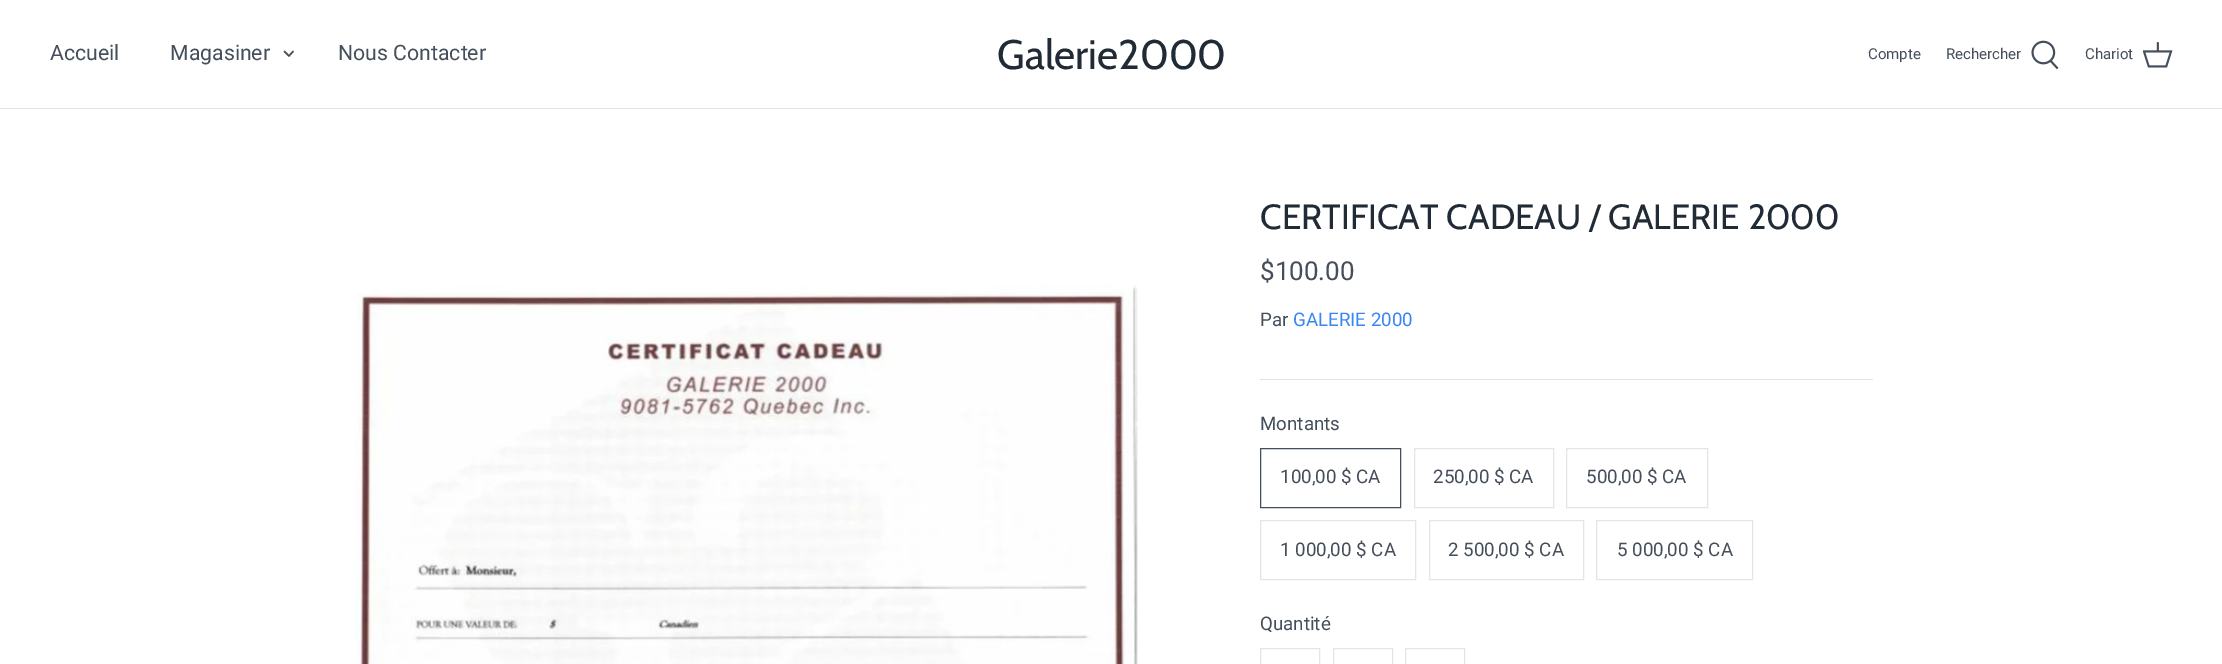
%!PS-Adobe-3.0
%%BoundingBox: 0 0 2222 664
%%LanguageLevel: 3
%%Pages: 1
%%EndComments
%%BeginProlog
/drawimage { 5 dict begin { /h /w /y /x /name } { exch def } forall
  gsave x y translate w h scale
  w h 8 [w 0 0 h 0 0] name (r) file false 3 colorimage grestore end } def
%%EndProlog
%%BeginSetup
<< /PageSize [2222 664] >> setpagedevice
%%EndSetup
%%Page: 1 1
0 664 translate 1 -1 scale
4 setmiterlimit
1 setgray
0 0 2222 664 rectfill
0.875 0.89 0.91 setrgbcolor
0 108 2222 1 rectfill
0.271 0.31 0.357 setrgbcolor
1.5 setlinewidth
1 setlinecap
1 setlinejoin
newpath 284.5 51.5 moveto 289 56 lineto 293 51.5 lineto stroke
(images/1.raw) 2031 40 28 30 drawimage
(images/2.raw) 2143 42 30 26 drawimage
(images/3.raw) 355 284 783 380 drawimage
0.886 setgray
1260 379 613 1 rectfill
0.271 0.31 0.357 setrgbcolor
1 setlinewidth
0 setlinecap
0 setlinejoin
1260.5 448.5 140 59 rectstroke
0.89 0.898 0.902 setrgbcolor
1414.5 448.5 139 59 rectstroke
1566.5 448.5 141 59 rectstroke
1260.5 520.5 155 59 rectstroke
1429.5 520.5 154 59 rectstroke
1596.5 520.5 156 59 rectstroke
1260.5 648.5 59 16 rectstroke
1333.5 648.5 59 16 rectstroke
1405.5 648.5 59 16 rectstroke
/Roboto-Regular [21.25 0 0 -21.25 0 0] selectfont
0.271 0.31 0.357 setrgbcolor
50 60 moveto (Accueil) show
170 60 moveto (Magasiner) show
338 60 moveto (Nous Contacter) show
/Cabin-Regular [41.25 0 0 -41.25 0 0] selectfont
0.129 0.169 0.212 setrgbcolor
997 69 moveto (Galerie2000) show
/Roboto-Regular [15 0 0 -15 0 0] selectfont
0.271 0.31 0.357 setrgbcolor
1868 59 moveto (Compte) show
1946 59 moveto (Rechercher) show
2085 59 moveto (Chariot) show
/Cabin-Regular [35 0 0 -35 0 0] selectfont
0.129 0.169 0.212 setrgbcolor
1260 229 moveto (CERTIFICAT CADEAU / GALERIE 2000) show
/Roboto-Regular [26 0 0 -26 0 0] selectfont
0.271 0.31 0.357 setrgbcolor
1260 280 moveto ($100.00) show
/Roboto-Regular [18.75 0 0 -18.75 0 0] selectfont
1260 326 moveto (Par) show
0.231 0.529 0.945 setrgbcolor
1293 326 moveto (GALERIE 2000) show
0.271 0.31 0.357 setrgbcolor
1260 430 moveto (Montants) show
1280 483 moveto (100,00 $ CA) show
1433 483 moveto (250,00 $ CA) show
1586 483 moveto (500,00 $ CA) show
1280 556 moveto (1 000,00 $ CA) show
1448 556 moveto (2 500,00 $ CA) show
1617 556 moveto (5 000,00 $ CA) show
1260 630 moveto (Quantité) show
showpage
%%EOF
